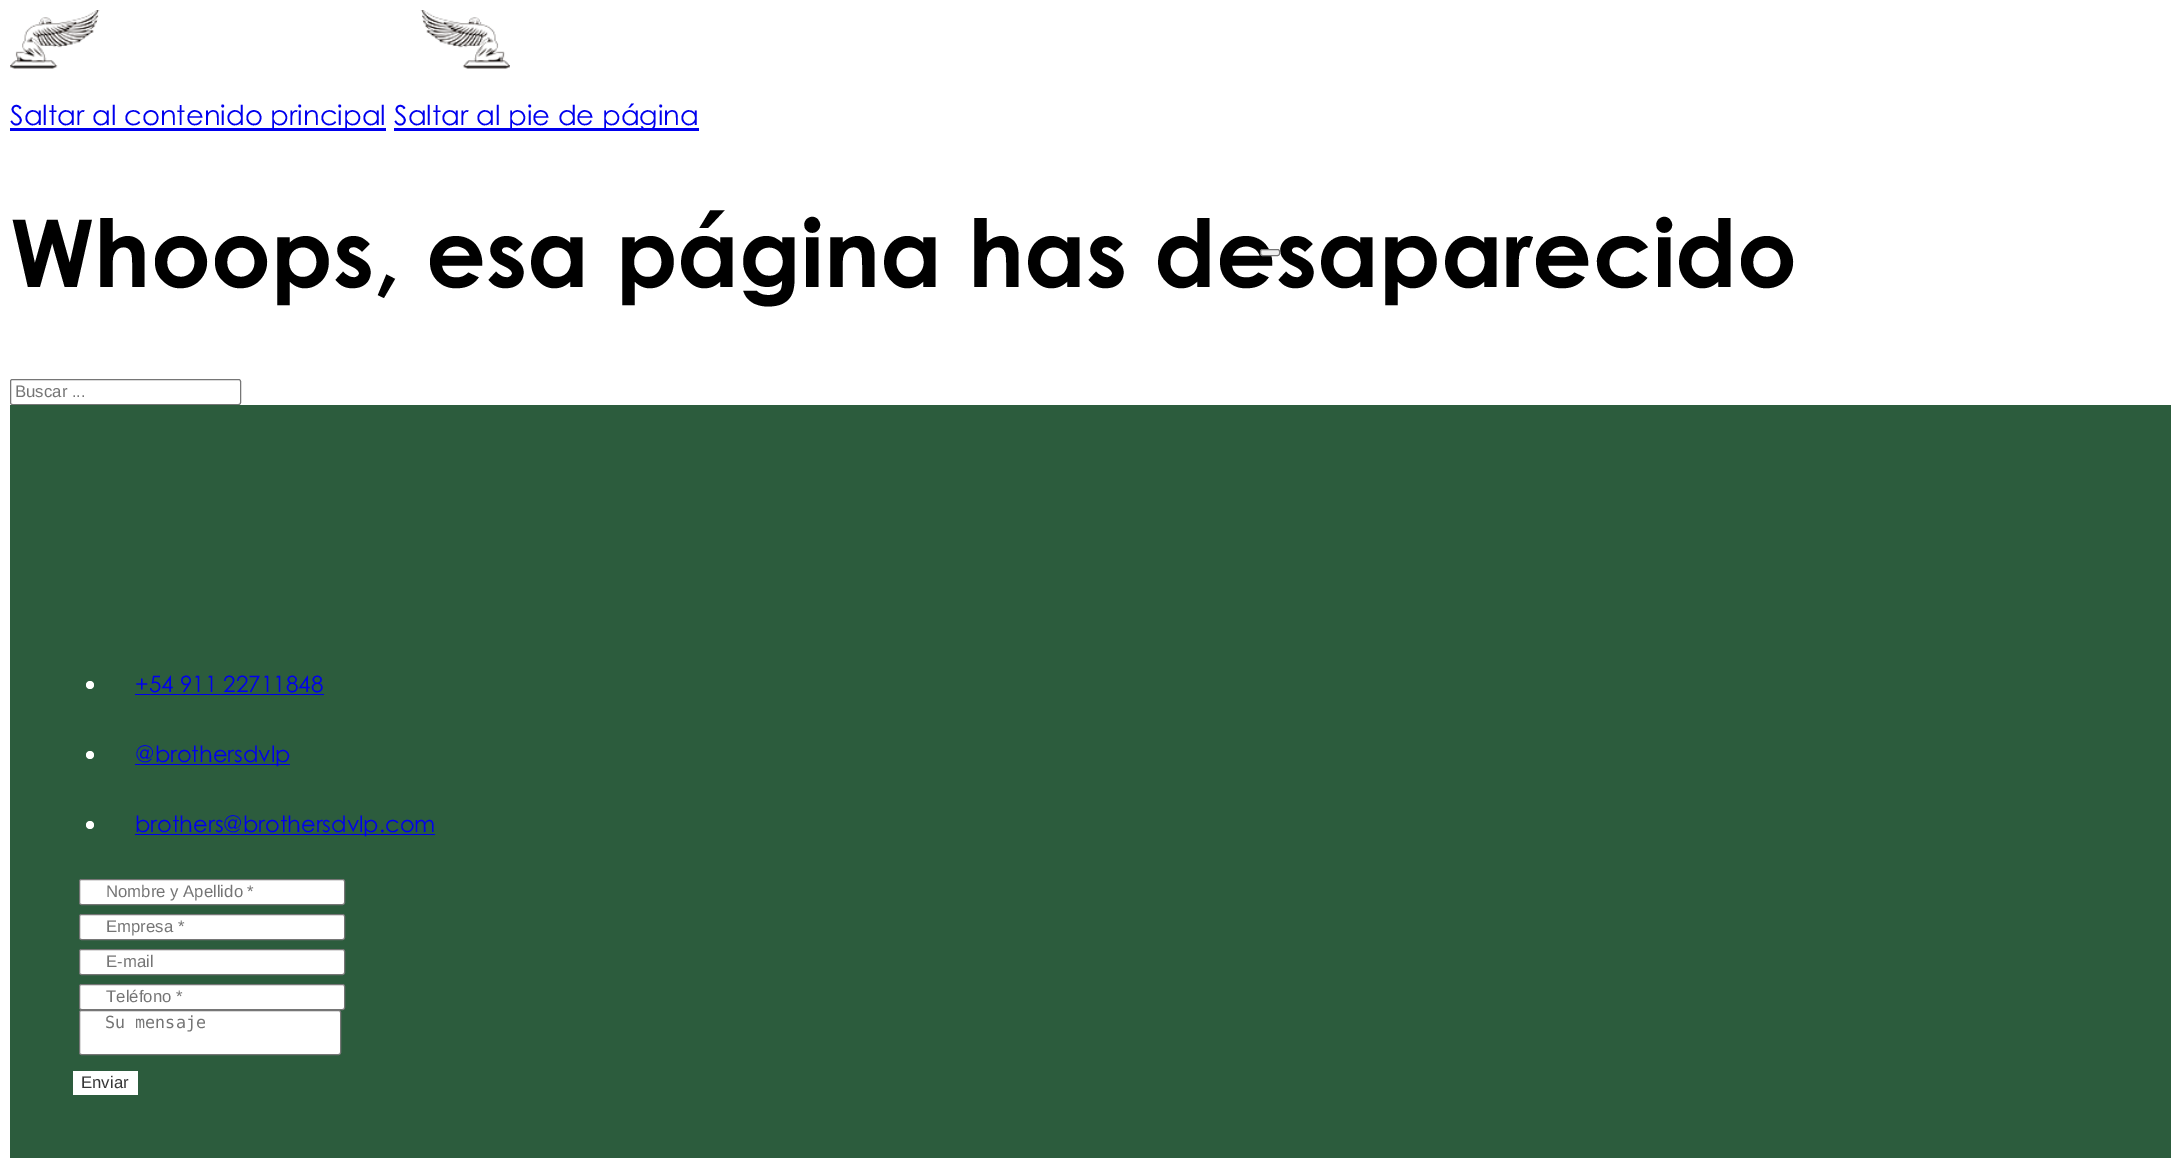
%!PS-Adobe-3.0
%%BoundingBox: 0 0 2181 1158
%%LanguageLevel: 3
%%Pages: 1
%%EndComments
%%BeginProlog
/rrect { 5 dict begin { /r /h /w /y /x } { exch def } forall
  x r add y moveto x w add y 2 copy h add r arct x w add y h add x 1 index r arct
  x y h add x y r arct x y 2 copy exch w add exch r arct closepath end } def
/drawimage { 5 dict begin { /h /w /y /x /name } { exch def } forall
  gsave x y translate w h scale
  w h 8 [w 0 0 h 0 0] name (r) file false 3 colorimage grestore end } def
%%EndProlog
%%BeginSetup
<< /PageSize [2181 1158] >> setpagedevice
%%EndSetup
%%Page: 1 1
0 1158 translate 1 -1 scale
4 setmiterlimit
1 setgray
0 0 2181 1158 rectfill
(images/1.raw) 10 10 500 59 drawimage
0 0 0.933 setrgbcolor
10 128 376 3 rectfill
394 128 305 3 rectfill
0.463 setgray
10.5 379.5 230 25 2 rrect stroke
0.173 0.361 0.239 setrgbcolor
10 405 2161 753 rectfill
1 setgray
newpath 90 685 4 0 360 arc closepath fill
0 0 0.933 setrgbcolor
135 694 189 1 rectfill
1 setgray
newpath 90 755 4 0 360 arc closepath fill
0 0 0.933 setrgbcolor
135 764 155 1 rectfill
1 setgray
newpath 90 825 4 0 360 arc closepath fill
0 0 0.933 setrgbcolor
135 834 300 1 rectfill
1 setgray
79.5 879.5 265 25 2 rrect gsave fill grestore
0.463 setgray
stroke
1 setgray
79.5 914.5 265 25 2 rrect gsave fill grestore
0.463 setgray
stroke
1 setgray
79.5 949.5 265 25 2 rrect gsave fill grestore
0.463 setgray
stroke
1 setgray
79.5 984.5 265 25 2 rrect gsave fill grestore
0.463 setgray
stroke
1 setgray
79.5 1010.5 261 44 2 rrect gsave fill grestore
0.463 setgray
stroke
1 setgray
73 1071 65 24 rectfill
/CenturyGothic-Regular [27.5 0 0 -27.5 0 0] selectfont
0 0 0.933 setrgbcolor
10 125 moveto (Saltar al contenido principal) show
394 125 moveto (Saltar al pie de página) show
/CenturyGothic-Bold [93.75 0 0 -93.75 0 0] selectfont
0 setgray
10 287 moveto (Whoops, esa página has desaparecido) show
/LiberationSans-Regular [16.75 0 0 -16.75 0 0] selectfont
0.459 setgray
15 397 moveto (Buscar ...) show
0.937 setgray
1260.5 249.5 19 6 2 rrect gsave fill grestore
0.463 setgray
stroke
/CenturyGothic-Regular [22.5 0 0 -22.5 0 0] selectfont
0 0 0.933 setrgbcolor
135 692 moveto (+54 911 22711848) show
135 762 moveto (@brothersdvlp) show
135 832 moveto (brothers@brothersdvlp.com) show
/LiberationSans-Regular [16.75 0 0 -16.75 0 0] selectfont
0.459 setgray
106 897 moveto (Nombre y Apellido *) show
106 932 moveto (Empresa *) show
106 967 moveto (E-mail) show
106 1002 moveto (Teléfono *) show
/DejaVuSansMono-Regular [16.75 0 0 -16.75 0 0] selectfont
105 1028 moveto (Su mensaje) show
/LiberationSans-Regular [16.75 0 0 -16.75 0 0] selectfont
0.212 setgray
81 1088 moveto (Enviar) show
showpage
%%EOF
